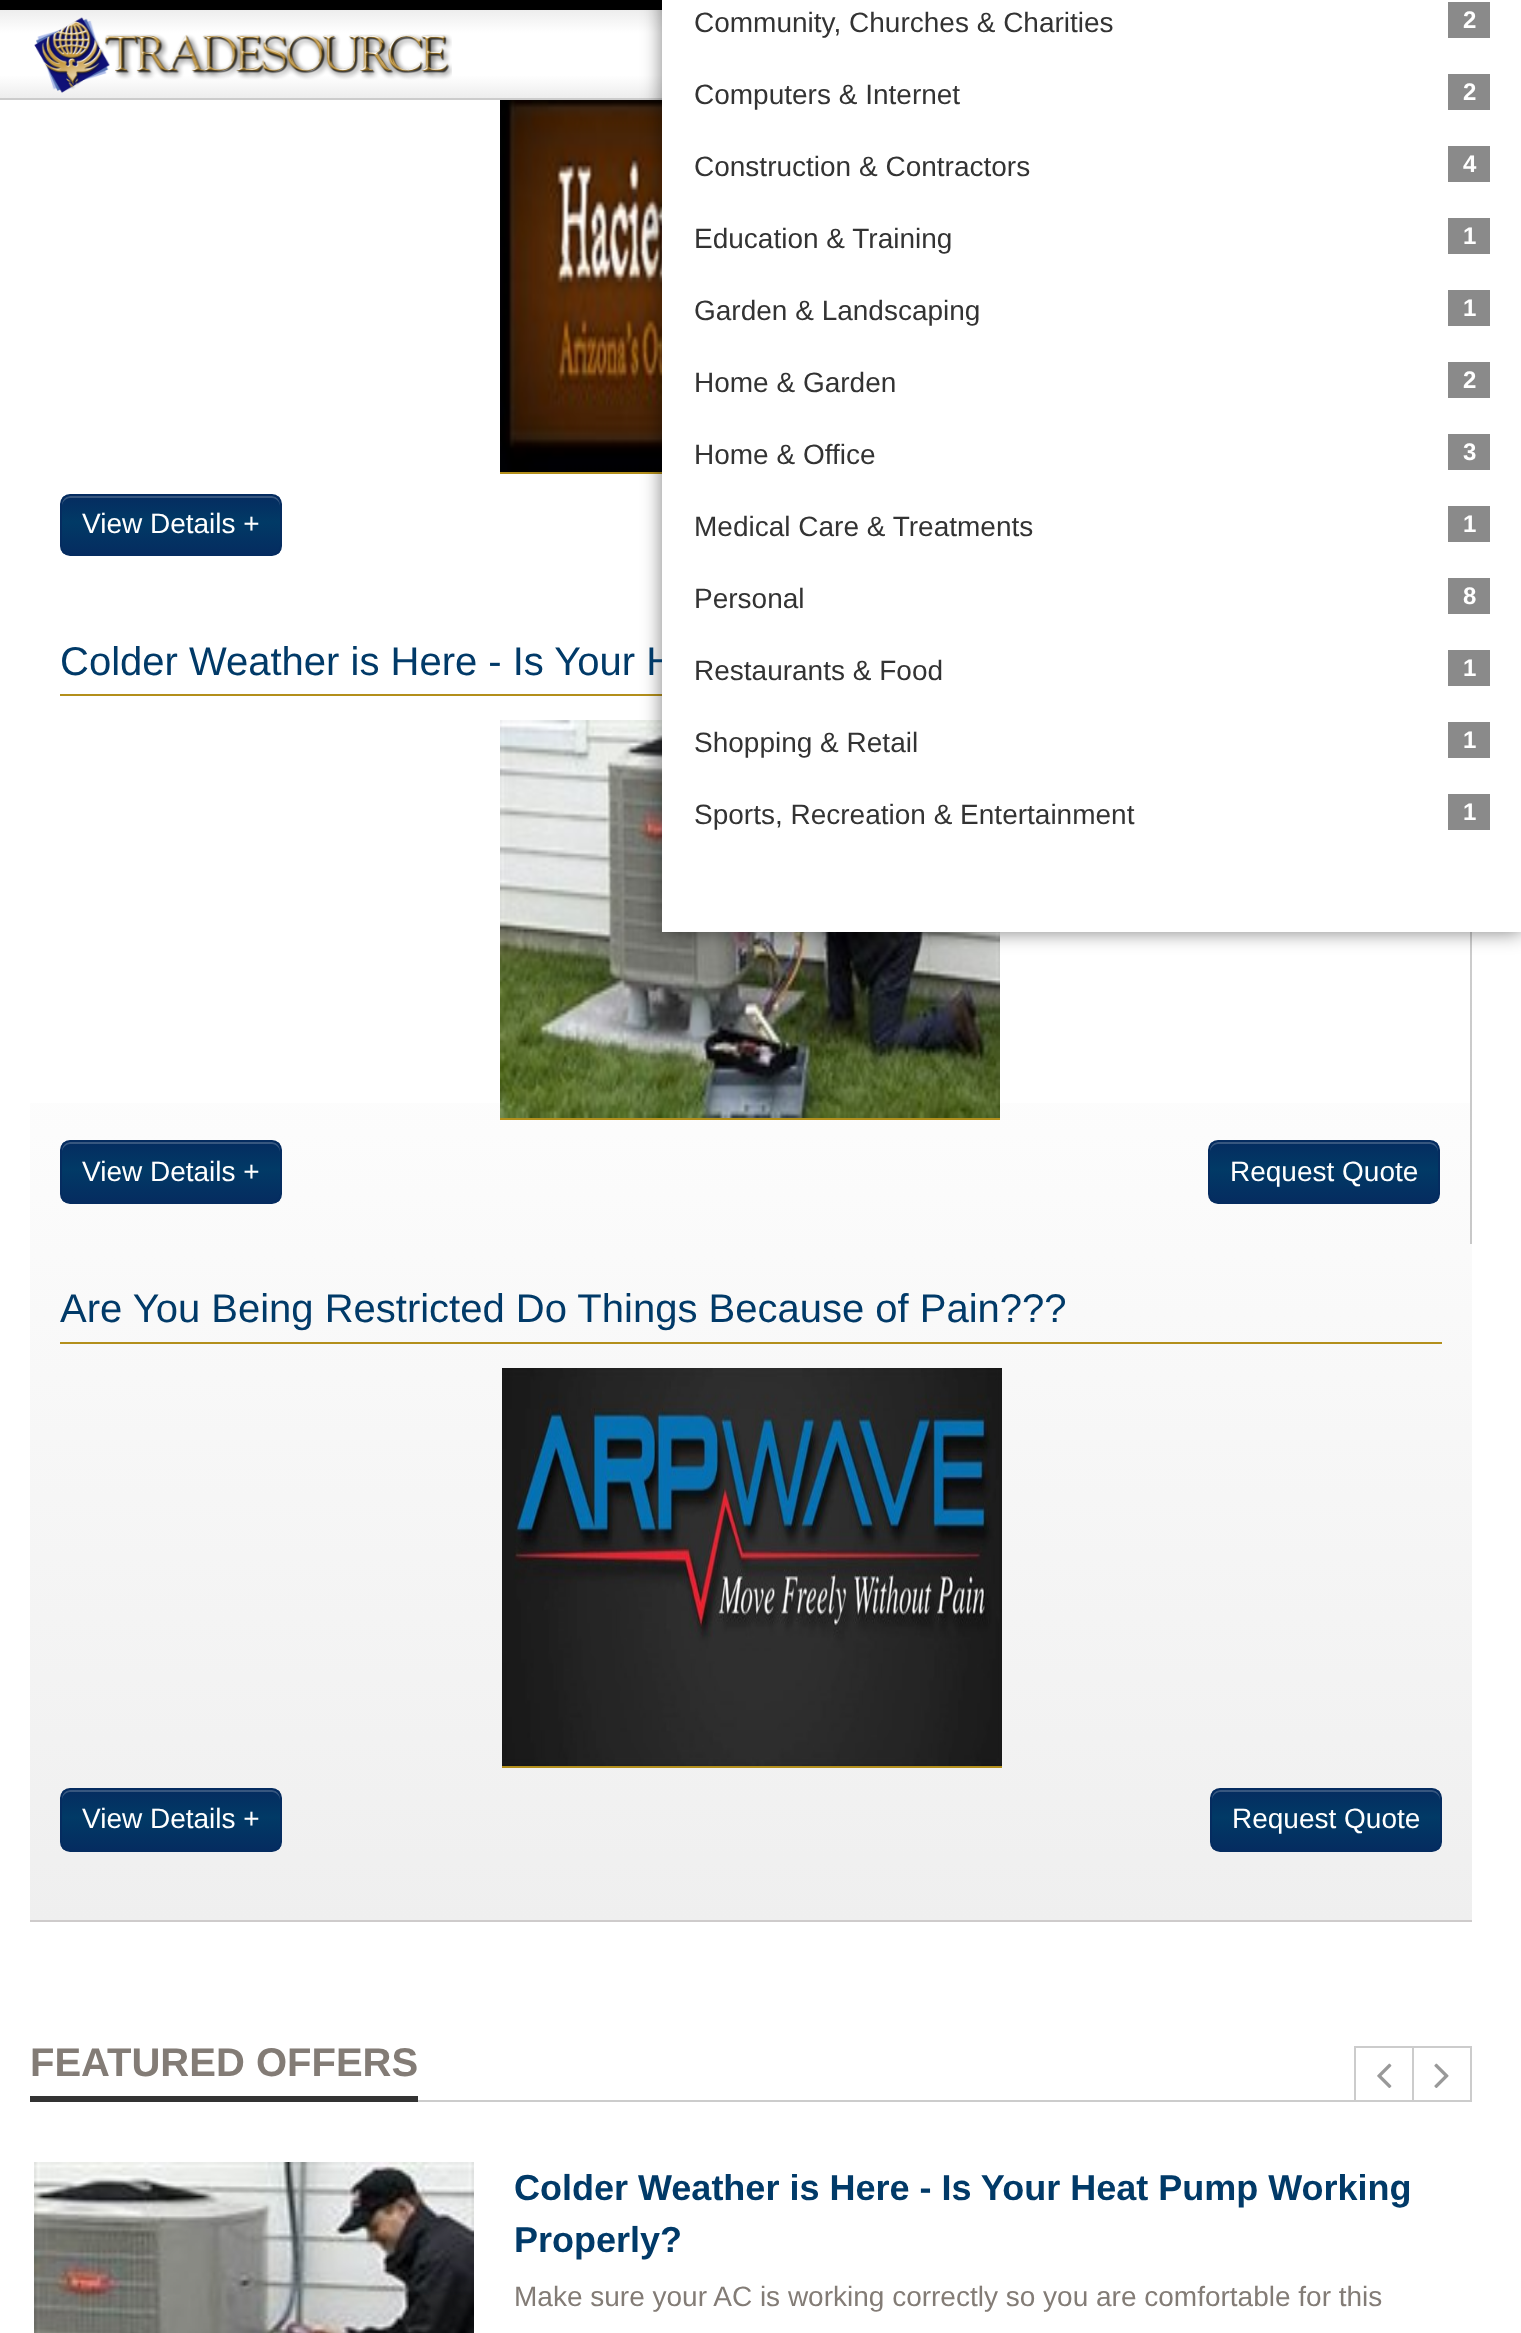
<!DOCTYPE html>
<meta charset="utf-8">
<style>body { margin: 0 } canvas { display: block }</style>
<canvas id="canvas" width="1521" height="2333"></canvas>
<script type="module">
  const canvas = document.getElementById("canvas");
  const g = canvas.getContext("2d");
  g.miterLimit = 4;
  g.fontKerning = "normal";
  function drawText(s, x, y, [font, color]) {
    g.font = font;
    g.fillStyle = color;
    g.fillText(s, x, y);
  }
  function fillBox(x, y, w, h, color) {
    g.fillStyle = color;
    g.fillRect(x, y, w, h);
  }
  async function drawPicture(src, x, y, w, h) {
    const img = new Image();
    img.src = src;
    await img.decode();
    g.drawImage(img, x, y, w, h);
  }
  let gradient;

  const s1 = ["40px Liberation Sans", "#013A68"];
  const s2 = ["28px Liberation Sans", "#333333"];
  const s3 = ["bold 24px Liberation Sans", "#FFFFFF"];
  const s4 = ["28px Liberation Sans", "#FFFFFF"];
  const s5 = ["bold 40px Liberation Sans", "#837C76"];
  const s6 = ["bold 36px Liberation Sans", "#013A68"];
  const s7 = ["28px Liberation Sans", "#837C76"];

  fillBox(0, 0, 1521, 2333, "#FFFFFF");
  gradient = g.createLinearGradient(761, 10, 761, 98);
  gradient.addColorStop(0, "#EDEDED");
  gradient.addColorStop(0.26, "#FFFFFF");
  gradient.addColorStop(0.74, "#FFFFFF");
  gradient.addColorStop(1, "#EDEDED");
  g.fillStyle = gradient;
  g.fillRect(0, 10, 662, 88);
  fillBox(0, 0, 662, 10, "#000000");
  fillBox(0, 98, 662, 2, "#CCCCCC");
  await drawPicture("pic1.png", 34, 17, 418, 76);
  gradient = g.createLinearGradient(751, -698, 751, 1920);
  gradient.addColorStop(0.63, "#FFFFFF");
  gradient.addColorStop(1, "#EFEFEF");
  g.fillStyle = gradient;
  g.fillRect(30, 1103, 1442, 817);
  gradient = g.createLinearGradient(751, -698, 751, 1920);
  gradient.addColorStop(0.63, "#CCCCCC");
  gradient.addColorStop(1, "#BFBFBF");
  g.fillStyle = gradient;
  g.fillRect(1470, 932, 2, 312);
  fillBox(500, 472, 162, 2, "#B38F1B");
  await drawPicture("pic2.png", 500, 100, 162, 372);
  fillBox(60, 694, 602, 2, "#B38F1B");
  await drawPicture("pic3.png", 500, 720, 500, 398);
  g.fillStyle = "rgba(0, 0, 0, 0.5)";
  g.filter = "blur(10px)";
  g.beginPath();
  g.rect(662, -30, 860, 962);
  g.fill();
  g.filter = "none";
  drawText("Colder Weather is Here - Is Your H", 60, 675, s1);
  fillBox(662, 0, 859, 932, "#FFFFFF");
  drawText("Community, Churches & Charities", 694, 32, s2);
  fillBox(1448, 2, 42, 36, "#8A8A8A");
  drawText("2", 1463, 28, s3);
  drawText("Computers & Internet", 694, 104, s2);
  fillBox(1448, 74, 42, 36, "#8A8A8A");
  drawText("2", 1463, 100, s3);
  drawText("Construction & Contractors", 694, 176, s2);
  fillBox(1448, 146, 42, 36, "#8A8A8A");
  drawText("4", 1463, 172, s3);
  drawText("Education & Training", 694, 248, s2);
  fillBox(1448, 218, 42, 36, "#8A8A8A");
  drawText("1", 1463, 244, s3);
  drawText("Garden & Landscaping", 694, 320, s2);
  fillBox(1448, 290, 42, 36, "#8A8A8A");
  drawText("1", 1463, 316, s3);
  drawText("Home & Garden", 694, 392, s2);
  fillBox(1448, 362, 42, 36, "#8A8A8A");
  drawText("2", 1463, 388, s3);
  drawText("Home & Office", 694, 464, s2);
  fillBox(1448, 434, 42, 36, "#8A8A8A");
  drawText("3", 1463, 460, s3);
  drawText("Medical Care & Treatments", 694, 536, s2);
  fillBox(1448, 506, 42, 36, "#8A8A8A");
  drawText("1", 1463, 532, s3);
  drawText("Personal", 694, 608, s2);
  fillBox(1448, 578, 42, 36, "#8A8A8A");
  drawText("8", 1463, 604, s3);
  drawText("Restaurants & Food", 694, 680, s2);
  fillBox(1448, 650, 42, 36, "#8A8A8A");
  drawText("1", 1463, 676, s3);
  drawText("Shopping & Retail", 694, 752, s2);
  fillBox(1448, 722, 42, 36, "#8A8A8A");
  drawText("1", 1463, 748, s3);
  drawText("Sports, Recreation & Entertainment", 694, 824, s2);
  fillBox(1448, 794, 42, 36, "#8A8A8A");
  drawText("1", 1463, 820, s3);
  fillBox(30, 1920, 1442, 2, "#CECBCB");
  g.save();
  g.beginPath();
  g.roundRect(60, 494, 222, 62, 10);
  g.clip();
  gradient = g.createLinearGradient(171, 496, 171, 554);
  gradient.addColorStop(0, "#052C60");
  gradient.addColorStop(0.45, "#013A66");
  gradient.addColorStop(1, "#052C60");
  g.fillStyle = gradient;
  g.fillRect(62, 496, 218, 58);
  g.restore();
  g.fillStyle = "rgba(255, 255, 255, 0.2)";
  g.beginPath();
  g.moveTo(70, 498);
  g.lineTo(272, 498);
  g.bezierCurveTo(276, 498, 280, 502, 280, 506);
  g.lineTo(280, 504);
  g.bezierCurveTo(280, 500, 276, 496, 272, 496);
  g.lineTo(70, 496);
  g.bezierCurveTo(66, 496, 62, 500, 62, 504);
  g.lineTo(62, 506);
  g.bezierCurveTo(62, 502, 66, 498, 70, 498);
  g.closePath();
  g.fill();
  g.beginPath();
  g.roundRect(61, 495, 220, 60, 9);
  g.strokeStyle = "#052C60";
  g.lineWidth = 2;
  g.stroke();
  drawText("View Details +", 82, 533, s4);
  fillBox(500, 1118, 500, 2, "#B38F1B");
  g.save();
  g.beginPath();
  g.roundRect(60, 1140, 222, 64, 10);
  g.clip();
  gradient = g.createLinearGradient(171, 1142, 171, 1202);
  gradient.addColorStop(0, "#052C60");
  gradient.addColorStop(0.45, "#013A66");
  gradient.addColorStop(1, "#052C60");
  g.fillStyle = gradient;
  g.fillRect(62, 1142, 218, 60);
  g.restore();
  g.fillStyle = "rgba(255, 255, 255, 0.2)";
  g.beginPath();
  g.moveTo(70, 1144);
  g.lineTo(272, 1144);
  g.bezierCurveTo(276, 1144, 280, 1148, 280, 1152);
  g.lineTo(280, 1150);
  g.bezierCurveTo(280, 1146, 276, 1142, 272, 1142);
  g.lineTo(70, 1142);
  g.bezierCurveTo(66, 1142, 62, 1146, 62, 1150);
  g.lineTo(62, 1152);
  g.bezierCurveTo(62, 1148, 66, 1144, 70, 1144);
  g.closePath();
  g.fill();
  g.beginPath();
  g.roundRect(61, 1141, 220, 62, 9);
  g.stroke();
  drawText("View Details +", 82, 1181, s4);
  g.save();
  g.beginPath();
  g.roundRect(1208, 1140, 232, 64, 10);
  g.clip();
  gradient = g.createLinearGradient(1324, 1142, 1324, 1202);
  gradient.addColorStop(0, "#052C60");
  gradient.addColorStop(0.45, "#013A66");
  gradient.addColorStop(1, "#052C60");
  g.fillStyle = gradient;
  g.fillRect(1210, 1142, 228, 60);
  g.restore();
  g.fillStyle = "rgba(255, 255, 255, 0.2)";
  g.beginPath();
  g.moveTo(1218, 1144);
  g.lineTo(1430, 1144);
  g.bezierCurveTo(1434, 1144, 1438, 1148, 1438, 1152);
  g.lineTo(1438, 1150);
  g.bezierCurveTo(1438, 1146, 1434, 1142, 1430, 1142);
  g.lineTo(1218, 1142);
  g.bezierCurveTo(1214, 1142, 1210, 1146, 1210, 1150);
  g.lineTo(1210, 1152);
  g.bezierCurveTo(1210, 1148, 1214, 1144, 1218, 1144);
  g.closePath();
  g.fill();
  g.beginPath();
  g.roundRect(1209, 1141, 230, 62, 9);
  g.stroke();
  drawText("Request Quote", 1230, 1181, s4);
  fillBox(60, 1342, 1382, 2, "#B38F1B");
  drawText("Are You Being Restricted Do Things Because of Pain???", 60, 1322, s1);
  fillBox(502, 1766, 500, 2, "#B38F1B");
  await drawPicture("pic4.png", 502, 1368, 500, 398);
  g.save();
  g.beginPath();
  g.roundRect(60, 1788, 222, 64, 10);
  g.clip();
  gradient = g.createLinearGradient(171, 1790, 171, 1850);
  gradient.addColorStop(0, "#052C60");
  gradient.addColorStop(0.45, "#013A66");
  gradient.addColorStop(1, "#052C60");
  g.fillStyle = gradient;
  g.fillRect(62, 1790, 218, 60);
  g.restore();
  g.fillStyle = "rgba(255, 255, 255, 0.2)";
  g.beginPath();
  g.moveTo(70, 1792);
  g.lineTo(272, 1792);
  g.bezierCurveTo(276, 1792, 280, 1796, 280, 1800);
  g.lineTo(280, 1798);
  g.bezierCurveTo(280, 1794, 276, 1790, 272, 1790);
  g.lineTo(70, 1790);
  g.bezierCurveTo(66, 1790, 62, 1794, 62, 1798);
  g.lineTo(62, 1800);
  g.bezierCurveTo(62, 1796, 66, 1792, 70, 1792);
  g.closePath();
  g.fill();
  g.beginPath();
  g.roundRect(61, 1789, 220, 62, 9);
  g.stroke();
  drawText("View Details +", 82, 1828, s4);
  g.save();
  g.beginPath();
  g.roundRect(1210, 1788, 232, 64, 10);
  g.clip();
  gradient = g.createLinearGradient(1326, 1790, 1326, 1850);
  gradient.addColorStop(0, "#052C60");
  gradient.addColorStop(0.45, "#013A66");
  gradient.addColorStop(1, "#052C60");
  g.fillStyle = gradient;
  g.fillRect(1212, 1790, 228, 60);
  g.restore();
  g.fillStyle = "rgba(255, 255, 255, 0.2)";
  g.beginPath();
  g.moveTo(1220, 1792);
  g.lineTo(1432, 1792);
  g.bezierCurveTo(1436, 1792, 1440, 1796, 1440, 1800);
  g.lineTo(1440, 1798);
  g.bezierCurveTo(1440, 1794, 1436, 1790, 1432, 1790);
  g.lineTo(1220, 1790);
  g.bezierCurveTo(1216, 1790, 1212, 1794, 1212, 1798);
  g.lineTo(1212, 1800);
  g.bezierCurveTo(1212, 1796, 1216, 1792, 1220, 1792);
  g.closePath();
  g.fill();
  g.beginPath();
  g.roundRect(1211, 1789, 230, 62, 9);
  g.stroke();
  drawText("Request Quote", 1232, 1828, s4);
  fillBox(418, 2100, 1054, 2, "#CCCCCC");
  fillBox(30, 2096, 388, 6, "#333333");
  drawText("FEATURED OFFERS", 30, 2076, s5);
  fillBox(1354, 2046, 118, 2, "#CCCCCC");
  fillBox(1354, 2046, 2, 54, "#CCCCCC");
  await drawPicture("pic5.png", 1377, 2063, 15, 25);
  fillBox(1470, 2046, 2, 54, "#CCCCCC");
  fillBox(1412, 2046, 2, 54, "#CCCCCC");
  await drawPicture("pic6.png", 1434, 2063, 15, 25);
  await drawPicture("pic7.png", 34, 2162, 440, 171);
  drawText("Colder Weather is Here - Is Your Heat Pump Working", 514, 2200, s6);
  drawText("Properly?", 514, 2252, s6);
  drawText("Make sure your AC is working correctly so you are comfortable for this", 514, 2306, s7);
</script>
